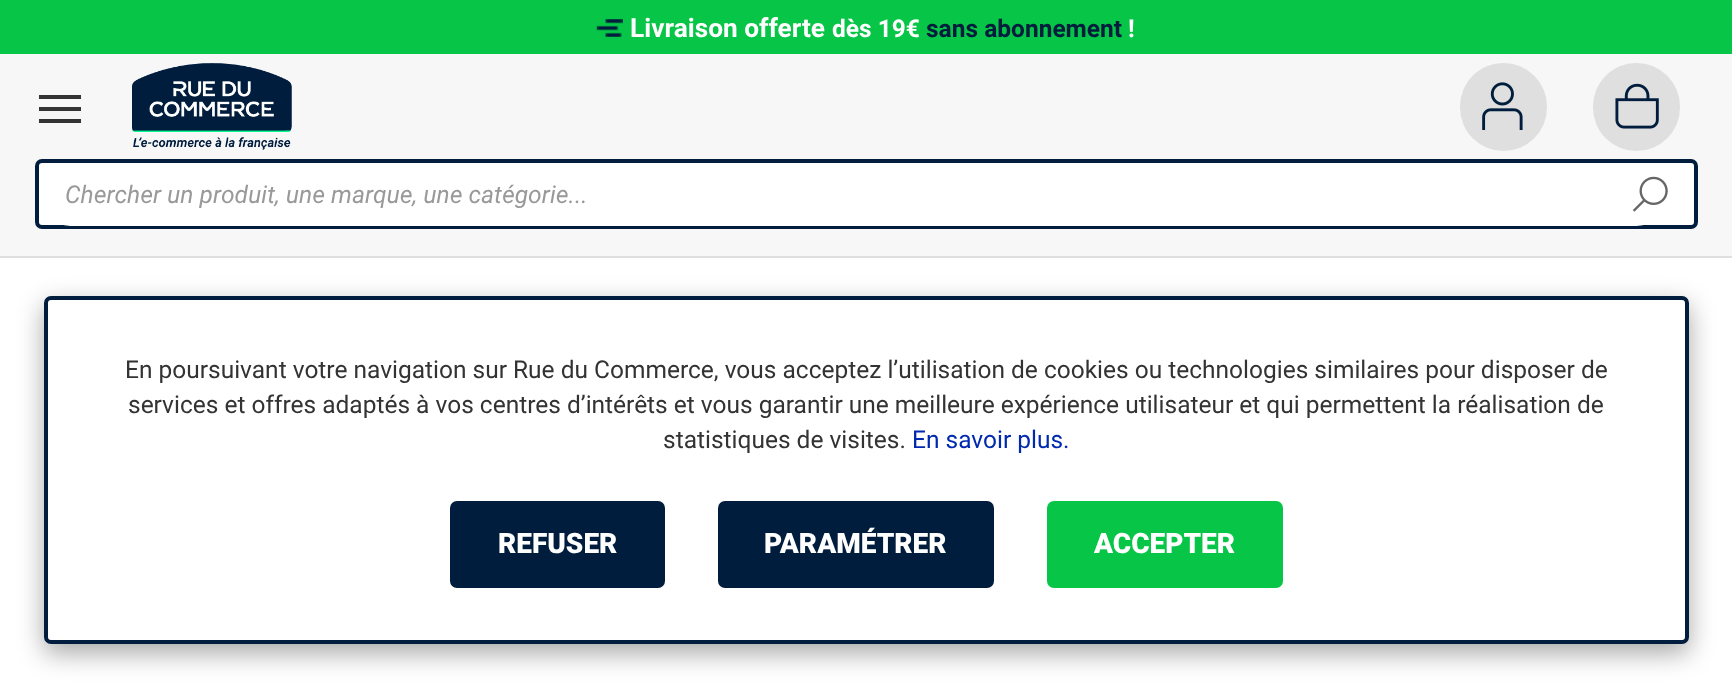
<!DOCTYPE html>
<meta charset="utf-8">
<style>body { margin: 0 } canvas { display: block }</style>
<canvas id="canvas" width="1732" height="687"></canvas>
<script type="module">
  const canvas = document.getElementById("canvas");
  const g = canvas.getContext("2d");
  g.miterLimit = 4;
  g.fontKerning = "normal";
  function drawText(s, x, y, [font, color]) {
    g.font = font;
    g.fillStyle = color;
    g.fillText(s, x, y);
  }
  function fillBox(x, y, w, h, color) {
    g.fillStyle = color;
    g.fillRect(x, y, w, h);
  }
  function fillRounded(x, y, w, h, r, color) {
    g.fillStyle = color;
    g.beginPath();
    g.roundRect(x, y, w, h, r);
    g.fill();
  }
  async function drawPicture(src, x, y, w, h) {
    const img = new Image();
    img.src = src;
    await img.decode();
    g.drawImage(img, x, y, w, h);
  }

  const s1 = ["bold 26.25px Roboto", "#FFFFFF"];
  const s2 = ["bold 24.5px Roboto", "#FFFFFF"];
  const s3 = ["bold 24.5px Roboto", "#001D3D"];
  const s4 = ["italic 24.5px Roboto", "#999999"];
  const s5 = ["24.5px Roboto", "#333333"];
  const s6 = ["24.5px Roboto", "#0029AF"];
  const s7 = ["900 28px Roboto", "#FFFFFF"];

  fillBox(0, 0, 1732, 687, "#FFFFFF");
  fillBox(0, 256, 1732, 2, "#DFDFDF");
  fillBox(0, 0, 1732, 54, "#07C546");
  await drawPicture("pic1.png", 596, 19, 27, 18);
  drawText("Livraison offerte", 630, 37, s1);
  drawText("dès 19€", 832, 37, s2);
  drawText("sans abonnement", 926, 37, s3);
  drawText("!", 1128, 37, s2);
  fillBox(0, 54, 1732, 202, "#F7F7F7");
  fillBox(39, 119, 42, 4, "#333333");
  fillBox(39, 95, 42, 4, "#333333");
  fillBox(39, 107, 42, 4, "#333333");
  await drawPicture("pic2.png", 132, 63, 160, 87);
  fillRounded(1460, 63, 87, 88, 43.5, "#DFDFDF");
  await drawPicture("pic3.png", 1482, 82, 41, 48);
  fillRounded(1593, 63, 87, 88, 43.5, "#DFDFDF");
  await drawPicture("pic4.png", 1615, 83, 44, 46);
  g.fillStyle = "#FFFFFF";
  g.beginPath();
  g.roundRect(37, 161, 1659, 66, 5);
  g.fill();
  g.strokeStyle = "#001D3D";
  g.lineWidth = 4;
  g.stroke();
  fillRounded(39, 163, 1629, 63, 31.5, "#FFFFFF");
  drawText("Chercher un produit, une marque, une catégorie...", 65, 203, s4);
  await drawPicture("pic5.png", 1632, 176, 36, 36);
  g.fillStyle = "rgba(0, 0, 0, 0.35)";
  g.filter = "blur(13px)";
  g.beginPath();
  g.roundRect(44, 305, 1645, 348, 7);
  g.fill();
  g.filter = "none";
  g.fillStyle = "#FFFFFF";
  g.beginPath();
  g.roundRect(46, 298, 1641, 344, 5);
  g.fill();
  g.stroke();
  drawText("En poursuivant votre navigation sur Rue du Commerce, vous acceptez l’utilisation de cookies ou technologies similaires pour disposer de", 125, 378, s5);
  drawText("services et offres adaptés à vos centres d’intérêts et vous garantir une meilleure expérience utilisateur et qui permettent la réalisation de", 128, 413, s5);
  drawText("statistiques de visites.", 663, 448, s5);
  drawText("En savoir plus.", 912, 448, s6);
  fillRounded(450, 501, 215, 87, 7, "#001D3D");
  drawText("REFUSER", 498, 553, s7);
  fillRounded(718, 501, 276, 87, 7, "#001D3D");
  drawText("PARAMÉTRER", 764, 553, s7);
  fillRounded(1047, 501, 236, 87, 7, "#07C546");
  drawText("ACCEPTER", 1094, 553, s7);
</script>
